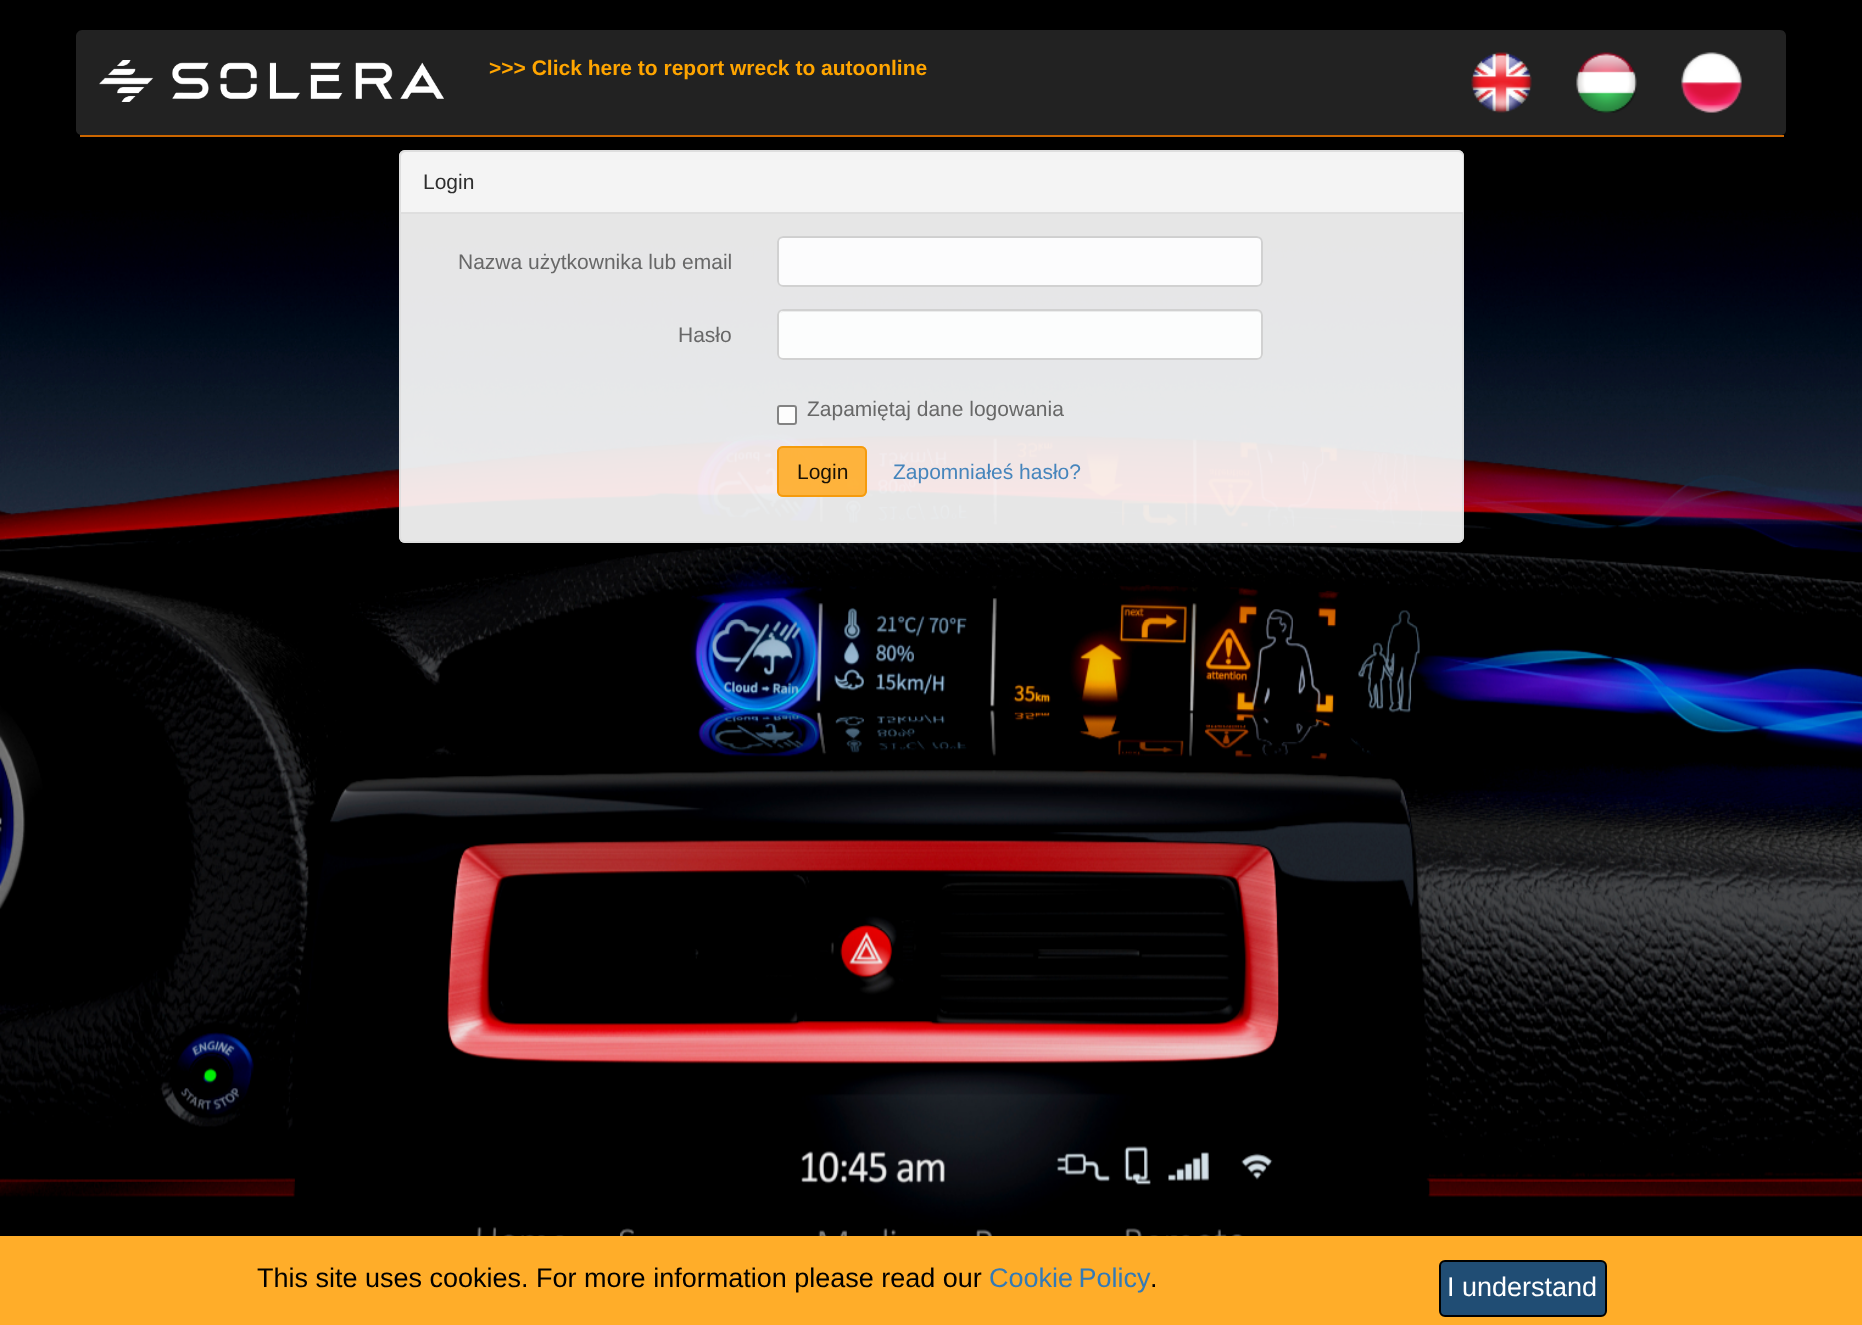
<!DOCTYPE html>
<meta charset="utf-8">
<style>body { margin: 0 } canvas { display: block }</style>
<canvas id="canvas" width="1862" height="1325"></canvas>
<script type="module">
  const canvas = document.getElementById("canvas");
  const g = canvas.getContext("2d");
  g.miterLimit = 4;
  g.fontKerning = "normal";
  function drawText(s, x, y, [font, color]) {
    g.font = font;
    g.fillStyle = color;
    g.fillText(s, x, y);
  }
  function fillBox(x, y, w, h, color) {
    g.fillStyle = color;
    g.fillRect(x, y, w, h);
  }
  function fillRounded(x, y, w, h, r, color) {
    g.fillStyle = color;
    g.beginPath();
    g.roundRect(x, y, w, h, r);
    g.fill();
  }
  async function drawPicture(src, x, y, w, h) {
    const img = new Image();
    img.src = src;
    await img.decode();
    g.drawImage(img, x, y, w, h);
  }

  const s1 = ["bold 21px Liberation Sans", "#FFA500"];
  const s2 = ["21px Liberation Sans", "#2E2E2E"];
  const s3 = ["21px Liberation Sans", "#686868"];
  const s4 = ["21px Liberation Sans", "#191206"];
  const s5 = ["21px Liberation Sans", "#4685BC"];
  const s6 = ["27px Liberation Sans", "#000000"];
  const s7 = ["27px Liberation Sans", "#337AB7"];
  const s8 = ["27px Liberation Sans", "#FFFFFF"];

  fillBox(0, 0, 1862, 1325, "#000000");
  g.fillStyle = "#222222";
  g.beginPath();
  g.moveTo(82, 30);
  g.lineTo(1780, 30);
  g.bezierCurveTo(1784, 30, 1786, 33, 1786, 36);
  g.lineTo(1786, 130);
  g.bezierCurveTo(1786, 133, 1784, 135, 1780, 135);
  g.lineTo(82, 135);
  g.bezierCurveTo(79, 135, 76, 133, 76, 130);
  g.lineTo(76, 36);
  g.bezierCurveTo(76, 33, 79, 30, 82, 30);
  g.closePath();
  g.fill();
  fillBox(80, 135, 1704, 2, "#CC6600");
  await drawPicture("pic1.png", 99, 60, 345, 42);
  drawText(">>> Click here to report wreck to autoonline", 489, 75, s1);
  await drawPicture("pic2.png", 1471, 52, 61, 61);
  await drawPicture("pic3.png", 1576, 52, 61, 61);
  await drawPicture("pic4.png", 1681, 52, 61, 61);
  await drawPicture("pic5.png", 0, 210, 1862, 1026);
  fillRounded(399, 150, 1065, 393, 6, "rgba(255, 255, 255, 0.9)");
  g.beginPath();
  g.roundRect(400, 151, 1063, 391, 5);
  g.strokeStyle = "rgba(221, 221, 221, 0.9)";
  g.lineWidth = 2;
  g.stroke();
  g.fillStyle = "rgba(245, 245, 245, 0.9)";
  g.beginPath();
  g.roundRect(401, 152, 1062, 61, [5, 5, 0, 0]);
  g.fill();
  fillBox(401, 212, 1062, 2, "rgba(221, 221, 221, 0.9)");
  drawText("Login", 423, 189, s2);
  drawText("Nazwa użytkownika lub email", 458, 269, s3);
  fillRounded(777, 236, 486, 51, 6, "#FCFCFD");
  g.fillStyle = "#EBEBEC";
  g.beginPath();
  g.moveTo(783, 238);
  g.lineTo(1257, 238);
  g.bezierCurveTo(1259, 238, 1262, 241, 1262, 243);
  g.lineTo(1262, 242);
  g.bezierCurveTo(1262, 239, 1260, 237, 1257, 237);
  g.lineTo(784, 237);
  g.bezierCurveTo(782, 237, 780, 238, 779, 240);
  g.bezierCurveTo(780, 239, 782, 238, 783, 238);
  g.closePath();
  g.fill();
  g.beginPath();
  g.roundRect(778, 237, 484, 49, 5);
  g.strokeStyle = "rgba(204, 204, 204, 0.9)";
  g.stroke();
  drawText("Hasło", 678, 342, s3);
  fillRounded(777, 309, 486, 51, 6, "#FCFDFD");
  g.fillStyle = "#EBECEC";
  g.beginPath();
  g.moveTo(783, 312);
  g.lineTo(1257, 312);
  g.bezierCurveTo(1259, 312, 1262, 314, 1262, 316);
  g.bezierCurveTo(1262, 313, 1260, 311, 1257, 311);
  g.lineTo(784, 311);
  g.bezierCurveTo(782, 311, 781, 312, 780, 313);
  g.closePath();
  g.fill();
  g.beginPath();
  g.roundRect(778, 310, 484, 49, 5);
  g.stroke();
  fillRounded(777, 405, 20, 20, 3, "#FDFDFD");
  g.beginPath();
  g.roundRect(778, 406, 18, 18, 2);
  g.strokeStyle = "rgba(118, 118, 118, 0.9)";
  g.stroke();
  drawText("Zapamiętaj dane logowania", 807, 416, s3);
  fillRounded(777, 446, 90, 51, 6, "rgba(255, 173, 41, 0.9)");
  g.beginPath();
  g.roundRect(778, 447, 88, 49, 5);
  g.strokeStyle = "rgba(244, 152, 8, 0.9)";
  g.stroke();
  drawText("Login", 797, 479, s4);
  drawText("Zapomniałeś hasło?", 893, 479, s5);
  fillBox(0, 1236, 1862, 89, "#FFAD29");
  drawText("This site uses cookies. For more information please read our", 257, 1287, s6);
  g.wordSpacing = "-2px";
  drawText("Cookie Policy", 989, 1287, s7);
  g.wordSpacing = "0px";
  drawText(".", 1150, 1287, s6);
  g.fillStyle = "#204D74";
  g.beginPath();
  g.roundRect(1440, 1261, 166, 55, 5);
  g.fill();
  g.strokeStyle = "#000000";
  g.stroke();
  drawText("I understand", 1447, 1296, s8);
</script>
